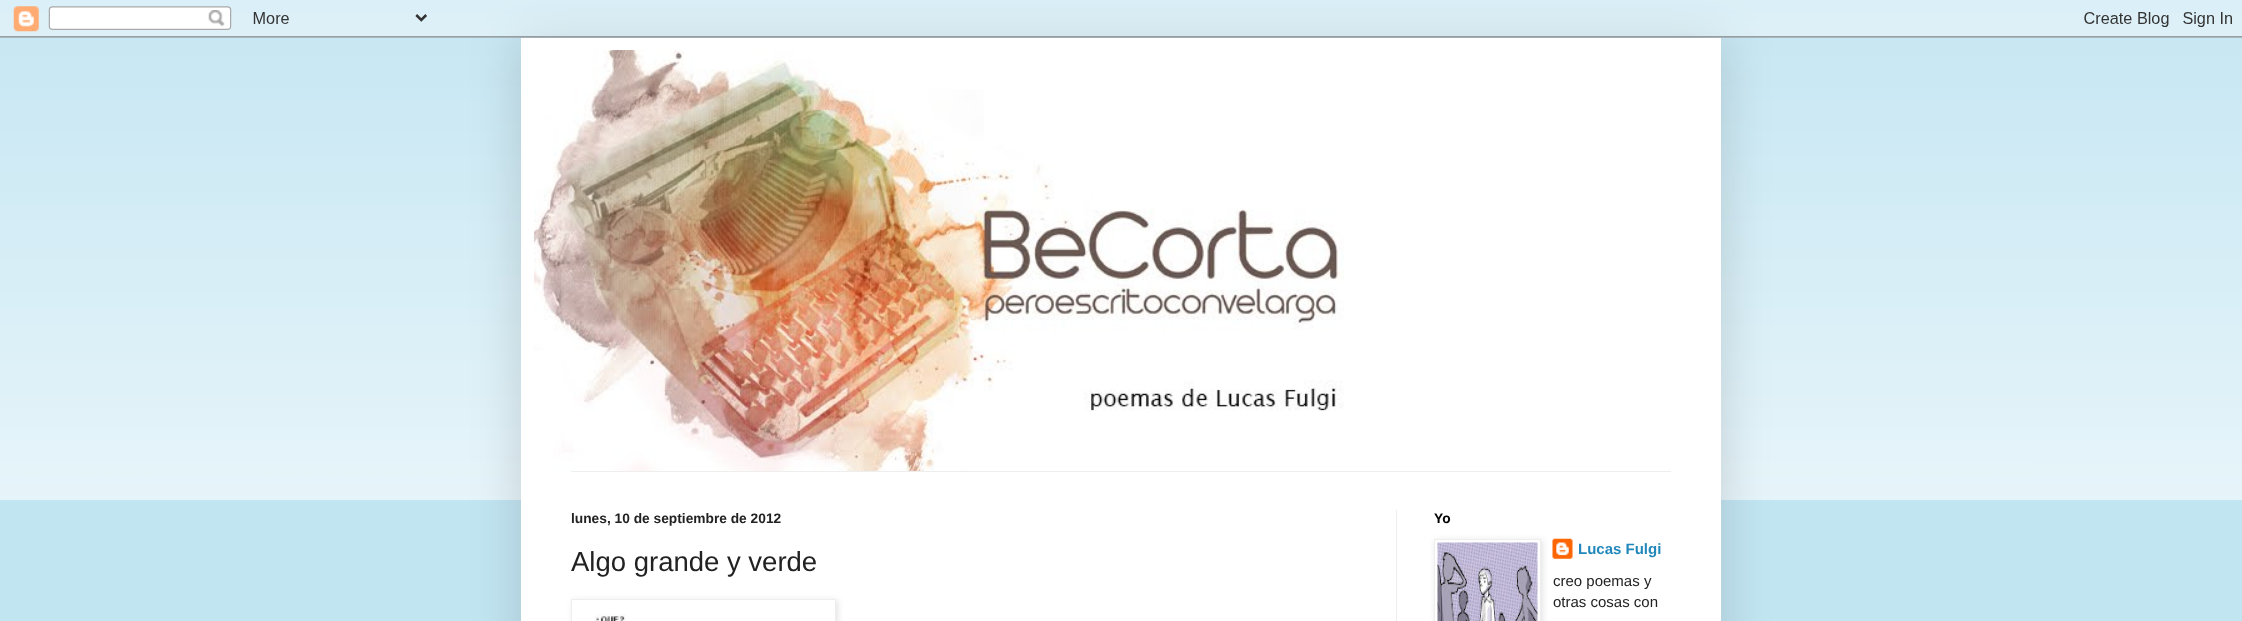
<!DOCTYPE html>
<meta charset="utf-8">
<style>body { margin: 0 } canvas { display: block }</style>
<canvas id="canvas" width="2242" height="621"></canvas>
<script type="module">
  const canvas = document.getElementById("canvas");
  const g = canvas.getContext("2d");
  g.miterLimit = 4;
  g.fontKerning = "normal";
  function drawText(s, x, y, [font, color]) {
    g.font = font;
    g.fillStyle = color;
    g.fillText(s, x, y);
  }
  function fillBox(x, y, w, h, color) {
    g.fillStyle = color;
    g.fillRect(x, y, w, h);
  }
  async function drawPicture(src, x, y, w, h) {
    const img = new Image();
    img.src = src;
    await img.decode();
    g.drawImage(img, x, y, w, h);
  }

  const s1 = ["bold 13.75px Liberation Sans", "#222222"];
  const s2 = ["27.5px Liberation Sans", "#222222"];
  const s3 = ["bold 13.75px Liberation Sans", "#000000"];
  const s4 = ["bold 15px Liberation Sans", "#2288BB"];
  const s5 = ["15px Liberation Sans", "#222222"];

  fillBox(0, 0, 2242, 621, "#C2E5F2");
  await drawPicture("pic2.png", 0, 13, 2242, 487);
  g.fillStyle = "rgba(0, 0, 0, 0.15)";
  g.filter = "blur(25px)";
  g.beginPath();
  g.rect(521, 38, 1200, 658);
  g.fill();
  g.filter = "none";
  await drawPicture("pic1.png", 0, 0, 2242, 38);
  fillBox(521, 38, 1200, 583, "#FFFFFF");
  await drawPicture("pic3.png", 533, 50, 811, 422);
  fillBox(571, 471, 1100, 1, "#EEEEEE");
  fillBox(1396, 510, 1, 111, "#EEEEEE");
  drawText("lunes, 10 de septiembre de 2012", 571, 523, s1);
  drawText("Algo grande y verde", 571, 571, s2);
  g.fillStyle = "rgba(0, 0, 0, 0.1)";
  g.filter = "blur(3px)";
  g.beginPath();
  g.rect(573, 600, 265, 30);
  g.fill();
  g.filter = "none";
  g.fillStyle = "#FFFFFF";
  g.beginPath();
  g.rect(571.5, 599.5, 264, 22);
  g.fill();
  g.strokeStyle = "#EEEEEE";
  g.stroke();
  await drawPicture("pic4.png", 595, 614, 31, 7);
  drawText("Yo", 1434, 523, s3);
  await drawPicture("pic6.png", 1552, 538, 21, 21);
  g.save();
  g.beginPath();
  g.moveTo(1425, 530);
  g.lineTo(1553, 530);
  g.lineTo(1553, 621);
  g.lineTo(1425, 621);
  g.closePath();
  g.moveTo(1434, 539);
  g.lineTo(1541, 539);
  g.lineTo(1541, 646);
  g.lineTo(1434, 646);
  g.closePath();
  g.clip("evenodd");
  g.fillStyle = "rgba(0, 0, 0, 0.1)";
  g.filter = "blur(3px)";
  g.beginPath();
  g.rect(1435, 540, 108, 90);
  g.fill();
  g.filter = "none";
  g.restore();
  g.strokeRect(1434.5, 539.5, 106, 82);
  await drawPicture("pic5.png", 1437, 542, 101, 79);
  drawText("Lucas Fulgi", 1578, 554, s4);
  drawText("creo poemas y", 1553, 586, s5);
  drawText("otras cosas con", 1553, 607, s5);
</script>
